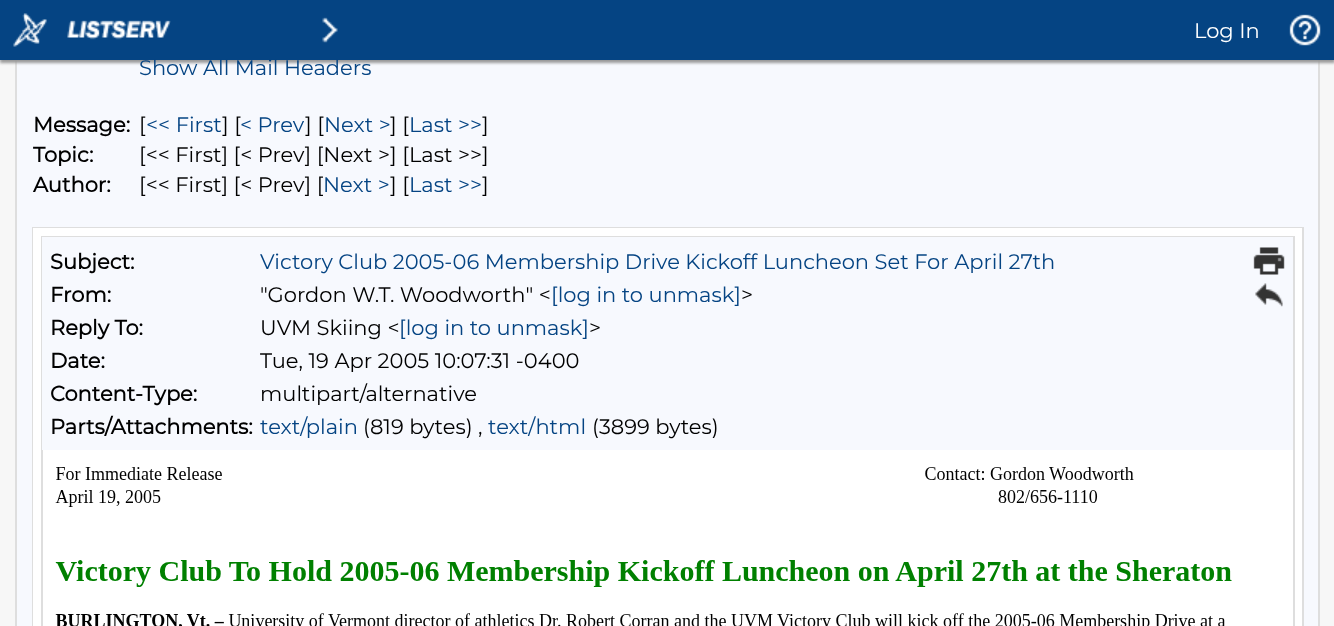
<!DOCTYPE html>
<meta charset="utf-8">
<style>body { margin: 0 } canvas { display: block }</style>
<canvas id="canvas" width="1334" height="626"></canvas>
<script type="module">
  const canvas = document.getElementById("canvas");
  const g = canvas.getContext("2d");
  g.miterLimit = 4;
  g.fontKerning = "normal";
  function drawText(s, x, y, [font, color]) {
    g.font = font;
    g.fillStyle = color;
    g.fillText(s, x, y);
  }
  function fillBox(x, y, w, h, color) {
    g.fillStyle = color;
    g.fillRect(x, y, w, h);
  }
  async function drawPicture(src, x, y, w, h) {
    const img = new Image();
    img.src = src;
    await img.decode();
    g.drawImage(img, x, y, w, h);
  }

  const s1 = ["100 21px Montserrat", "#FFFFFF"];
  const s2 = ["100 21px Montserrat", "#054483"];
  const s3 = ["bold 21px Montserrat", "#000000"];
  const s4 = ["100 21px Montserrat", "#000000"];

  fillBox(0, 0, 1334, 626, "#F7F7F7");
  fillBox(17, 60, 1301, 566, "#F7F9FE");
  g.strokeStyle = "#DEDEDE";
  g.lineWidth = 2;
  g.strokeRect(16, -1, 1303, 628);
  g.fillStyle = "#999999";
  g.filter = "blur(1.5px)";
  g.beginPath();
  g.rect(0, 3, 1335, 60);
  g.fill();
  g.filter = "none";
  fillBox(0, 0, 1334, 60, "#054483");
  await drawPicture("pic1.png", 13, 13, 34, 34);
  await drawPicture("pic2.png", 67, 20, 104, 20);
  await drawPicture("pic3.png", 322, 17, 16, 26);
  drawText("Log In", 1194, 38, s1);
  await drawPicture("pic4.png", 1289, 14, 32, 32);
  drawText("Show All Mail Headers", 139, 75, s2);
  drawText("Message:", 33, 132, s3);
  drawText("[", 139, 132, s4);
  drawText("<< First", 146, 132, s2);
  drawText("] [", 222, 132, s4);
  drawText("< Prev", 240, 132, s2);
  drawText("] [", 305, 132, s4);
  drawText("Next >", 324, 132, s2);
  drawText("] [", 390, 132, s4);
  drawText("Last >>", 409, 132, s2);
  drawText("]", 482, 132, s4);
  drawText("Topic:", 33, 162, s3);
  drawText("[<< First] [< Prev] [Next >] [Last >>]", 139, 162, s4);
  drawText("Author:", 33, 192, s3);
  drawText("[<< First] [< Prev] [", 139, 192, s4);
  drawText("Next >", 323, 192, s2);
  drawText("] [", 390, 192, s4);
  drawText("Last >>", 409, 192, s2);
  drawText("]", 482, 192, s4);
  g.strokeRect(33, 228, 1270, 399);
  fillBox(33, 228, 1269, 398, "#FFFFFF");
  g.strokeRect(42, 237, 1252, 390);
  fillBox(42, 237, 1251, 213, "#F7F9FE");
  drawText("Subject:", 50, 269, s3);
  drawText("Victory Club 2005-06 Membership Drive Kickoff Luncheon Set For April 27th", 260, 269, s2);
  drawText("From:", 50, 302, s3);
  drawText("\"Gordon W.T. Woodworth\" <", 260, 302, s4);
  drawText("[log in to unmask]", 551, 302, s2);
  drawText(">", 741, 302, s4);
  drawText("Reply To:", 50, 335, s3);
  drawText("UVM Skiing <", 260, 335, s4);
  drawText("[log in to unmask]", 399, 335, s2);
  drawText(">", 589, 335, s4);
  drawText("Date:", 50, 368, s3);
  drawText("Tue, 19 Apr 2005 10:07:31 -0400", 260, 368, s4);
  drawText("Content-Type:", 50, 401, s3);
  drawText("multipart/alternative", 260, 401, s4);
  drawText("Parts/Attachments:", 50, 434, s3);
  drawText("text/plain", 260, 434, s2);
  drawText("(819 bytes) ,", 363, 434, s4);
  drawText("text/html", 488, 434, s2);
  drawText("(3899 bytes)", 592, 434, s4);
  await drawPicture("pic5.png", 1253, 247, 32, 28);
  await drawPicture("pic6.png", 1255, 283, 28, 24);
  await drawPicture("pic7.png", 55, 467, 1177, 159);
</script>
